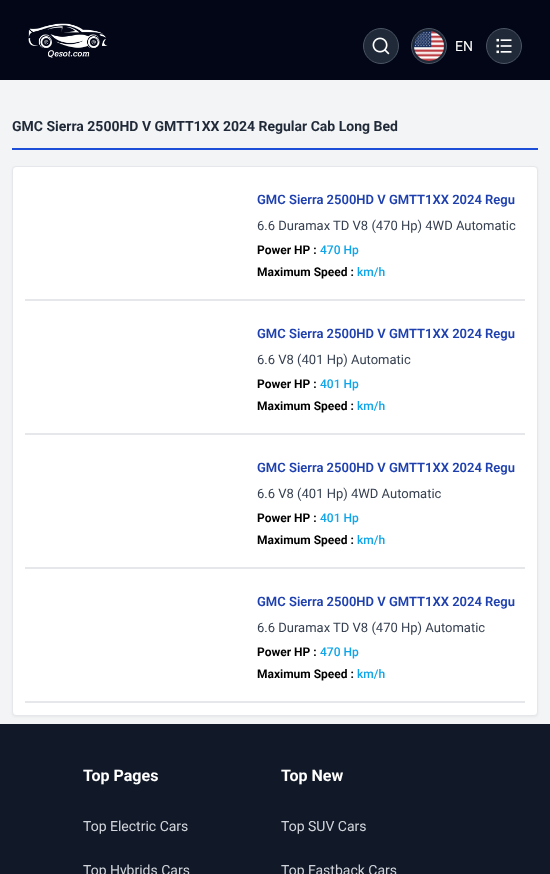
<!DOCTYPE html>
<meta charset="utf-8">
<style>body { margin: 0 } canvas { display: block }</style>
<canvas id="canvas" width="550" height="874"></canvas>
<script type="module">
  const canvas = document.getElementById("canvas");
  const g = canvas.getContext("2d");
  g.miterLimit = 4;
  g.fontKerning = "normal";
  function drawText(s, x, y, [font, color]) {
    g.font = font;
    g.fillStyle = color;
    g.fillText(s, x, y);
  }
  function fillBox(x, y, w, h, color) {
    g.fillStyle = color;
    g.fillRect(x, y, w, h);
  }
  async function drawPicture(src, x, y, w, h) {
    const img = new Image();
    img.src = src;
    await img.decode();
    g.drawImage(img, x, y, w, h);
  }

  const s1 = ["14px Roboto", "#FFFFFF"];
  const s2 = ["bold 14px Roboto", "#1F2937"];
  const s3 = ["600 13px Roboto", "#1E40AF"];
  const s4 = ["13px Roboto", "#374151"];
  const s5 = ["bold 12px Roboto", "#000000"];
  const s6 = ["500 12px Roboto", "#0EA5E9"];
  const s7 = ["bold 16px Roboto", "#FFFFFF"];
  const s8 = ["14px Roboto", "#D1D5DB"];

  fillBox(0, 0, 550, 874, "#F3F4F6");
  fillBox(0, 0, 550, 80, "#020617");
  await drawPicture("pic1.png", 28, 23, 80, 35);
  g.fillStyle = "#1F2937";
  g.beginPath();
  g.arc(381, 46, 17.5, 0, Math.PI * 2);
  g.fill();
  g.strokeStyle = "#4B5563";
  g.stroke();
  await drawPicture("pic2.png", 372, 37, 18, 18);
  g.beginPath();
  g.arc(429, 46, 17.5, 0, Math.PI * 2);
  g.fill();
  g.stroke();
  await drawPicture("pic3.png", 414, 31, 30, 30);
  drawText("EN", 455, 51, s1);
  g.fillStyle = "#1F2937";
  g.beginPath();
  g.arc(504, 46, 17.5, 0, Math.PI * 2);
  g.fill();
  g.stroke();
  await drawPicture("pic4.png", 496, 38, 16, 16);
  fillBox(12, 148, 526, 2, "#1D4ED8");
  drawText("GMC Sierra 2500HD V GMTT1XX 2024 Regular Cab Long Bed", 12, 131, s2);
  g.fillStyle = "rgba(0, 0, 0, 0.05)";
  g.filter = "blur(1px)";
  g.beginPath();
  g.roundRect(12, 167, 526, 550, 4);
  g.fill();
  g.filter = "none";
  g.fillStyle = "#FFFFFF";
  g.beginPath();
  g.roundRect(12.5, 166.5, 525, 549, 3.5);
  g.fill();
  g.strokeStyle = "#E5E7EB";
  g.stroke();
  fillBox(25, 299, 500, 2, "#E5E7EB");
  drawText("GMC Sierra 2500HD V GMTT1XX 2024 Regu", 257, 204, s3);
  drawText("6.6 Duramax TD V8 (470 Hp) 4WD Automatic", 257, 230, s4);
  drawText("Power HP :", 257, 254, s5);
  drawText("470 Hp", 320, 254, s6);
  drawText("Maximum Speed :", 257, 276, s5);
  drawText("km/h", 357, 276, s6);
  fillBox(25, 433, 500, 2, "#E5E7EB");
  drawText("GMC Sierra 2500HD V GMTT1XX 2024 Regu", 257, 338, s3);
  drawText("6.6 V8 (401 Hp) Automatic", 257, 364, s4);
  drawText("Power HP :", 257, 388, s5);
  drawText("401 Hp", 320, 388, s6);
  drawText("Maximum Speed :", 257, 410, s5);
  drawText("km/h", 357, 410, s6);
  fillBox(25, 567, 500, 2, "#E5E7EB");
  drawText("GMC Sierra 2500HD V GMTT1XX 2024 Regu", 257, 472, s3);
  drawText("6.6 V8 (401 Hp) 4WD Automatic", 257, 498, s4);
  drawText("Power HP :", 257, 522, s5);
  drawText("401 Hp", 320, 522, s6);
  drawText("Maximum Speed :", 257, 544, s5);
  drawText("km/h", 357, 544, s6);
  fillBox(25, 701, 500, 2, "#E5E7EB");
  drawText("GMC Sierra 2500HD V GMTT1XX 2024 Regu", 257, 606, s3);
  drawText("6.6 Duramax TD V8 (470 Hp) Automatic", 257, 632, s4);
  drawText("Power HP :", 257, 656, s5);
  drawText("470 Hp", 320, 656, s6);
  drawText("Maximum Speed :", 257, 678, s5);
  drawText("km/h", 357, 678, s6);
  fillBox(0, 724, 550, 150, "#111827");
  drawText("Top Pages", 83, 781, s7);
  drawText("Top Electric Cars", 83, 831, s8);
  drawText("Top Hybrids Cars", 83, 875, s8);
  drawText("Top New", 281, 781, s7);
  drawText("Top SUV Cars", 281, 831, s8);
  drawText("Top Fastback Cars", 281, 875, s8);
</script>
